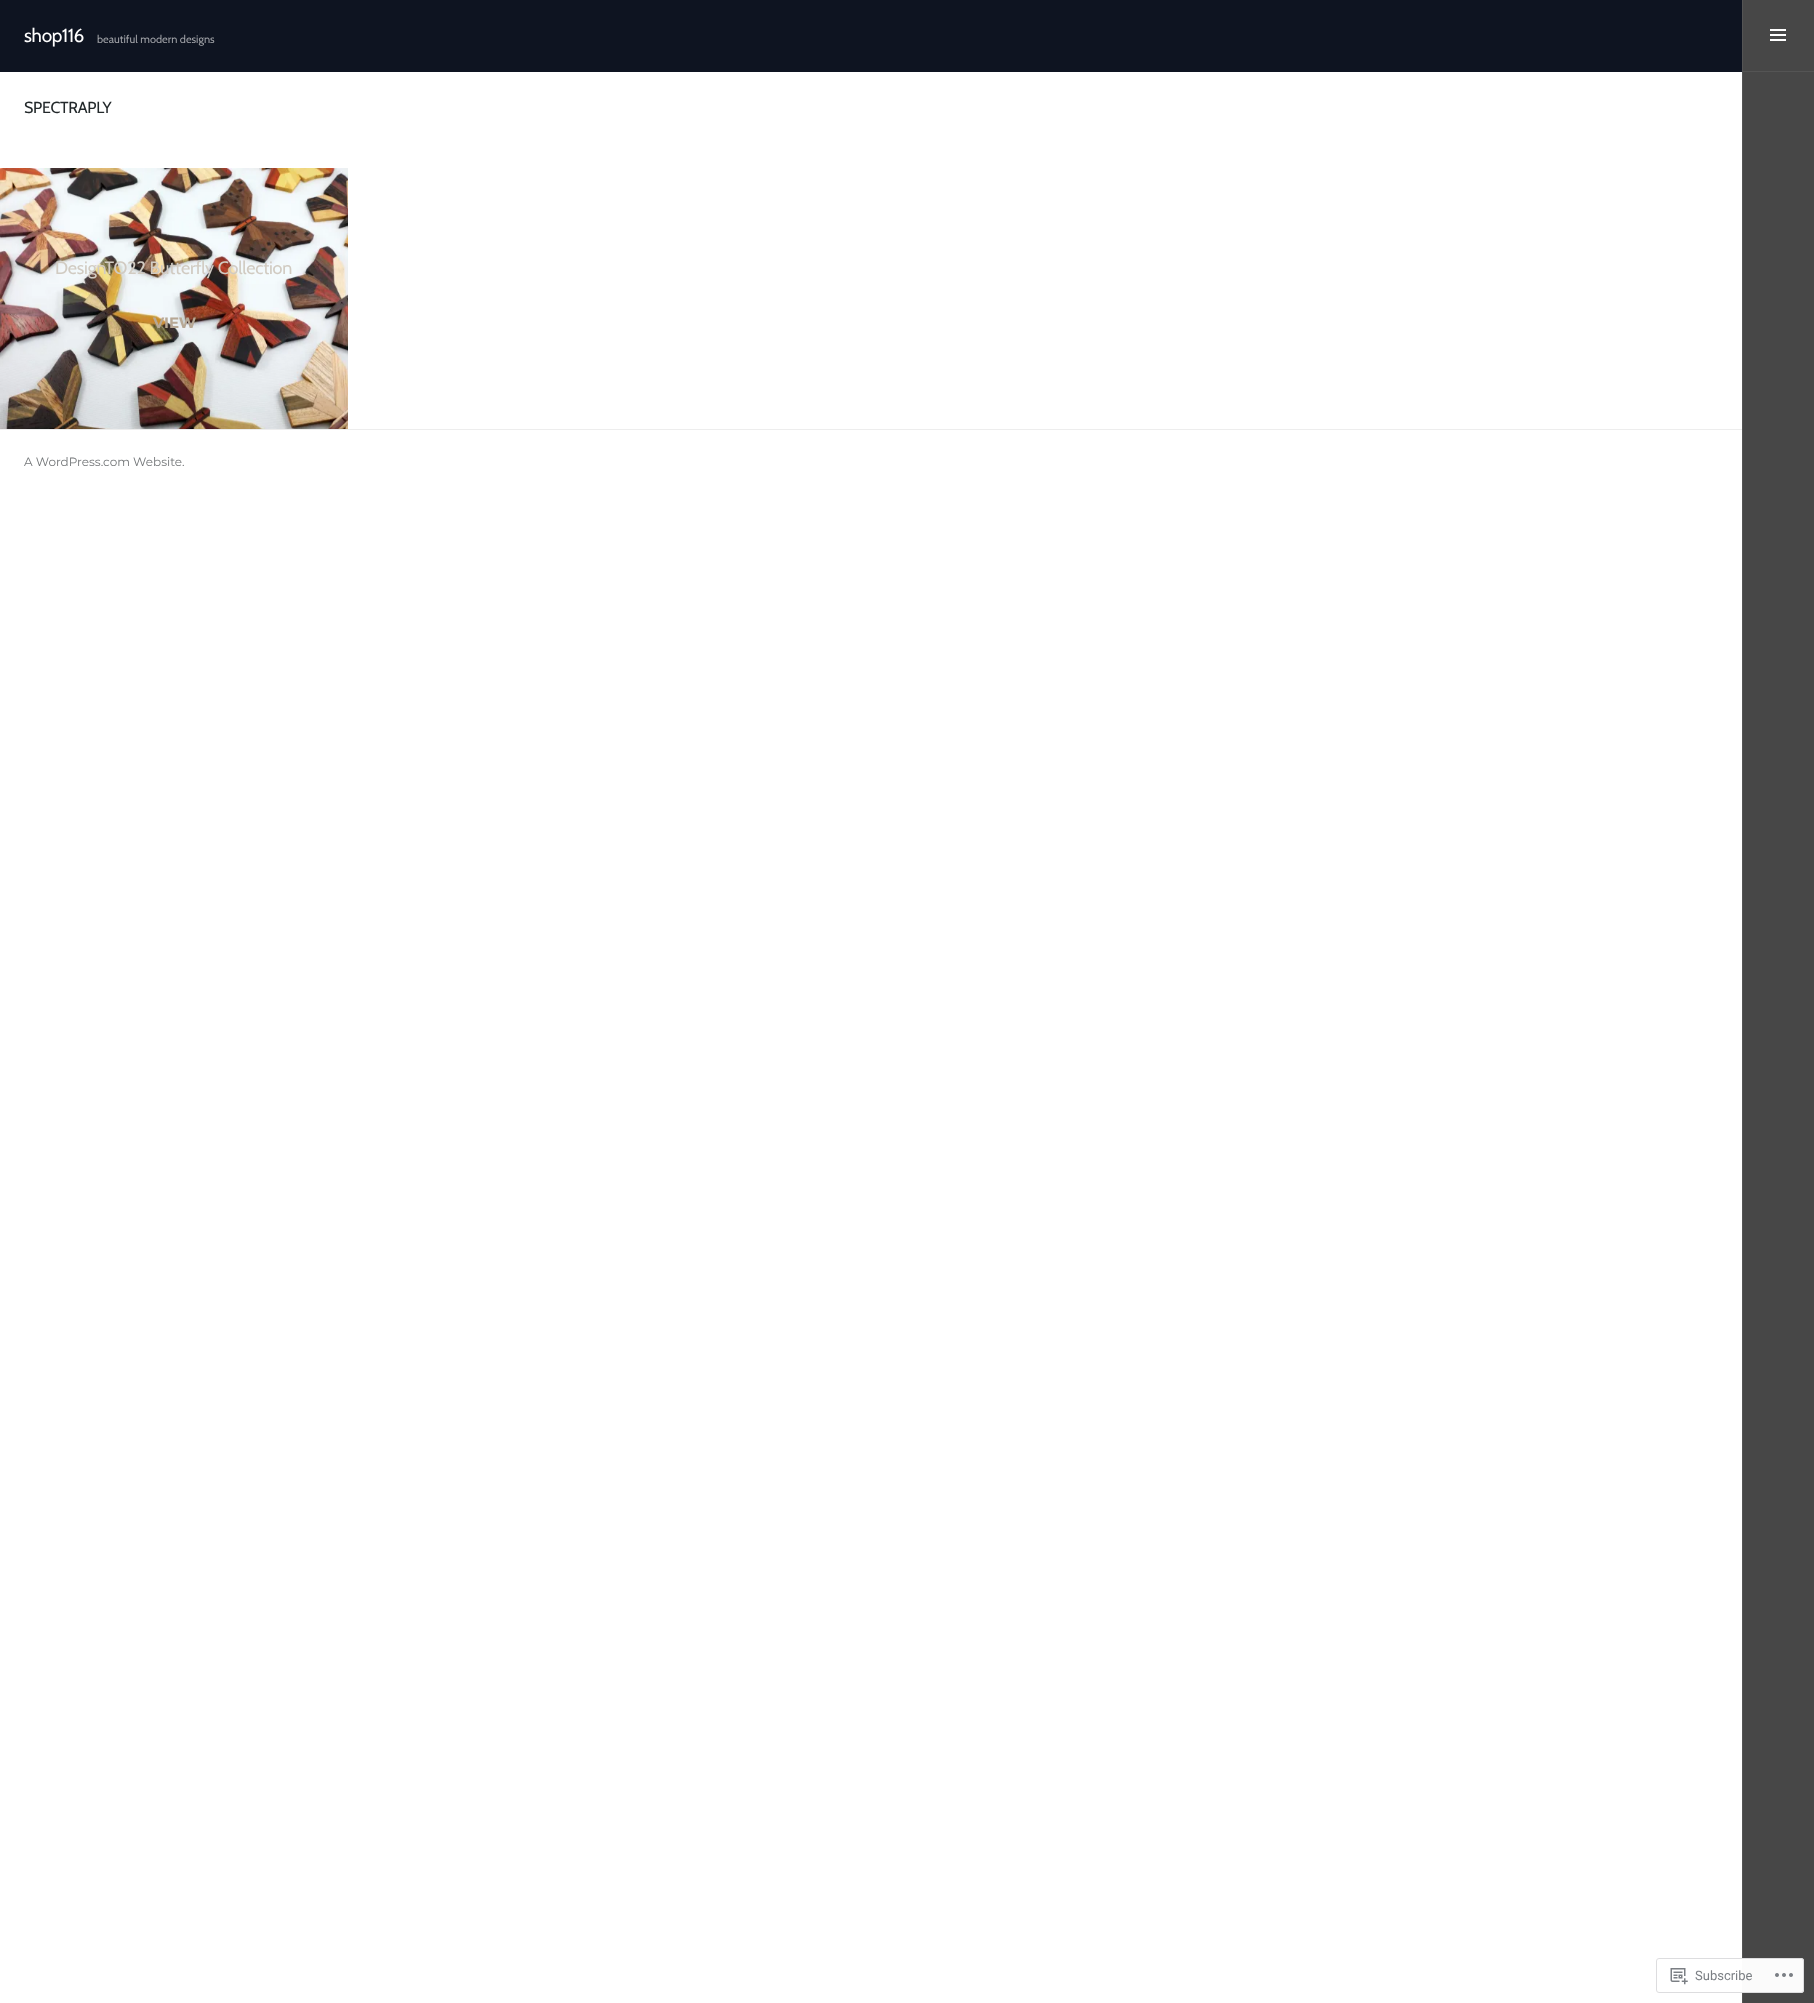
<!DOCTYPE html>
<meta charset="utf-8">
<style>body { margin: 0 } canvas { display: block }</style>
<canvas id="canvas" width="1814" height="2003"></canvas>
<script type="module">
  const canvas = document.getElementById("canvas");
  const g = canvas.getContext("2d");
  g.miterLimit = 4;
  g.fontKerning = "normal";
  function drawText(s, x, y, [font, color]) {
    g.font = font;
    g.fillStyle = color;
    g.fillText(s, x, y);
  }
  function fillBox(x, y, w, h, color) {
    g.fillStyle = color;
    g.fillRect(x, y, w, h);
  }
  function fillRounded(x, y, w, h, r, color) {
    g.fillStyle = color;
    g.beginPath();
    g.roundRect(x, y, w, h, r);
    g.fill();
  }
  async function drawPicture(src, x, y, w, h) {
    const img = new Image();
    img.src = src;
    await img.decode();
    g.drawImage(img, x, y, w, h);
  }

  const s1 = ["19px Cabin", "#FFFFFF"];
  const s2 = ["11px Cabin", "#9FA1A6"];
  const s3 = ["16px Cabin", "#23292B"];
  const s4 = ["18px Cabin", "#D1CBC2"];
  const s5 = ["bold 15px Montserrat", "#B7A895"];
  const s6 = ["12px Montserrat", "#737678"];
  const s7 = ["13px Roboto", "#7B7F84"];

  fillBox(0, 0, 1814, 2003, "#FFFFFF");
  fillBox(0, 0, 1742, 72, "#0E1421");
  g.letterSpacing = "-0.25px";
  drawText("shop116", 24, 42, s1);
  g.letterSpacing = "0px";
  drawText("beautiful modern designs", 97, 43, s2);
  fillBox(1743, 0, 71, 2003, "#474747");
  fillBox(1742, 0, 1, 2003, "#545454");
  fillBox(1742, 71, 72, 1, "#545454");
  await drawPicture("pic1.png", 1770, 29, 16, 12);
  g.letterSpacing = "-0.25px";
  drawText("SPECTRAPLY", 24, 113, s3);
  await drawPicture("pic2.png", 0, 168, 348, 261);
  g.letterSpacing = "-0.2px";
  drawText("DesignTO22 Butterfly Collection", 55, 274, s4);
  g.letterSpacing = "0px";
  drawText("VIEW", 153, 328, s5);
  fillBox(0, 429, 1742, 1, "#EDEDED");
  drawText("A WordPress.com Website.", 24, 466, s6);
  fillRounded(1656, 1958, 148, 35, 3, "rgba(255, 255, 255, 0.98)");
  g.beginPath();
  g.roundRect(1656.5, 1958.5, 147, 34, 2.5);
  g.strokeStyle = "rgba(220, 220, 222, 0.98)";
  g.stroke();
  await drawPicture("pic3.png", 1670, 1968, 18, 17);
  drawText("Subscribe", 1695, 1980, s7);
  await drawPicture("pic4.png", 1775, 1973, 18, 4);
</script>
